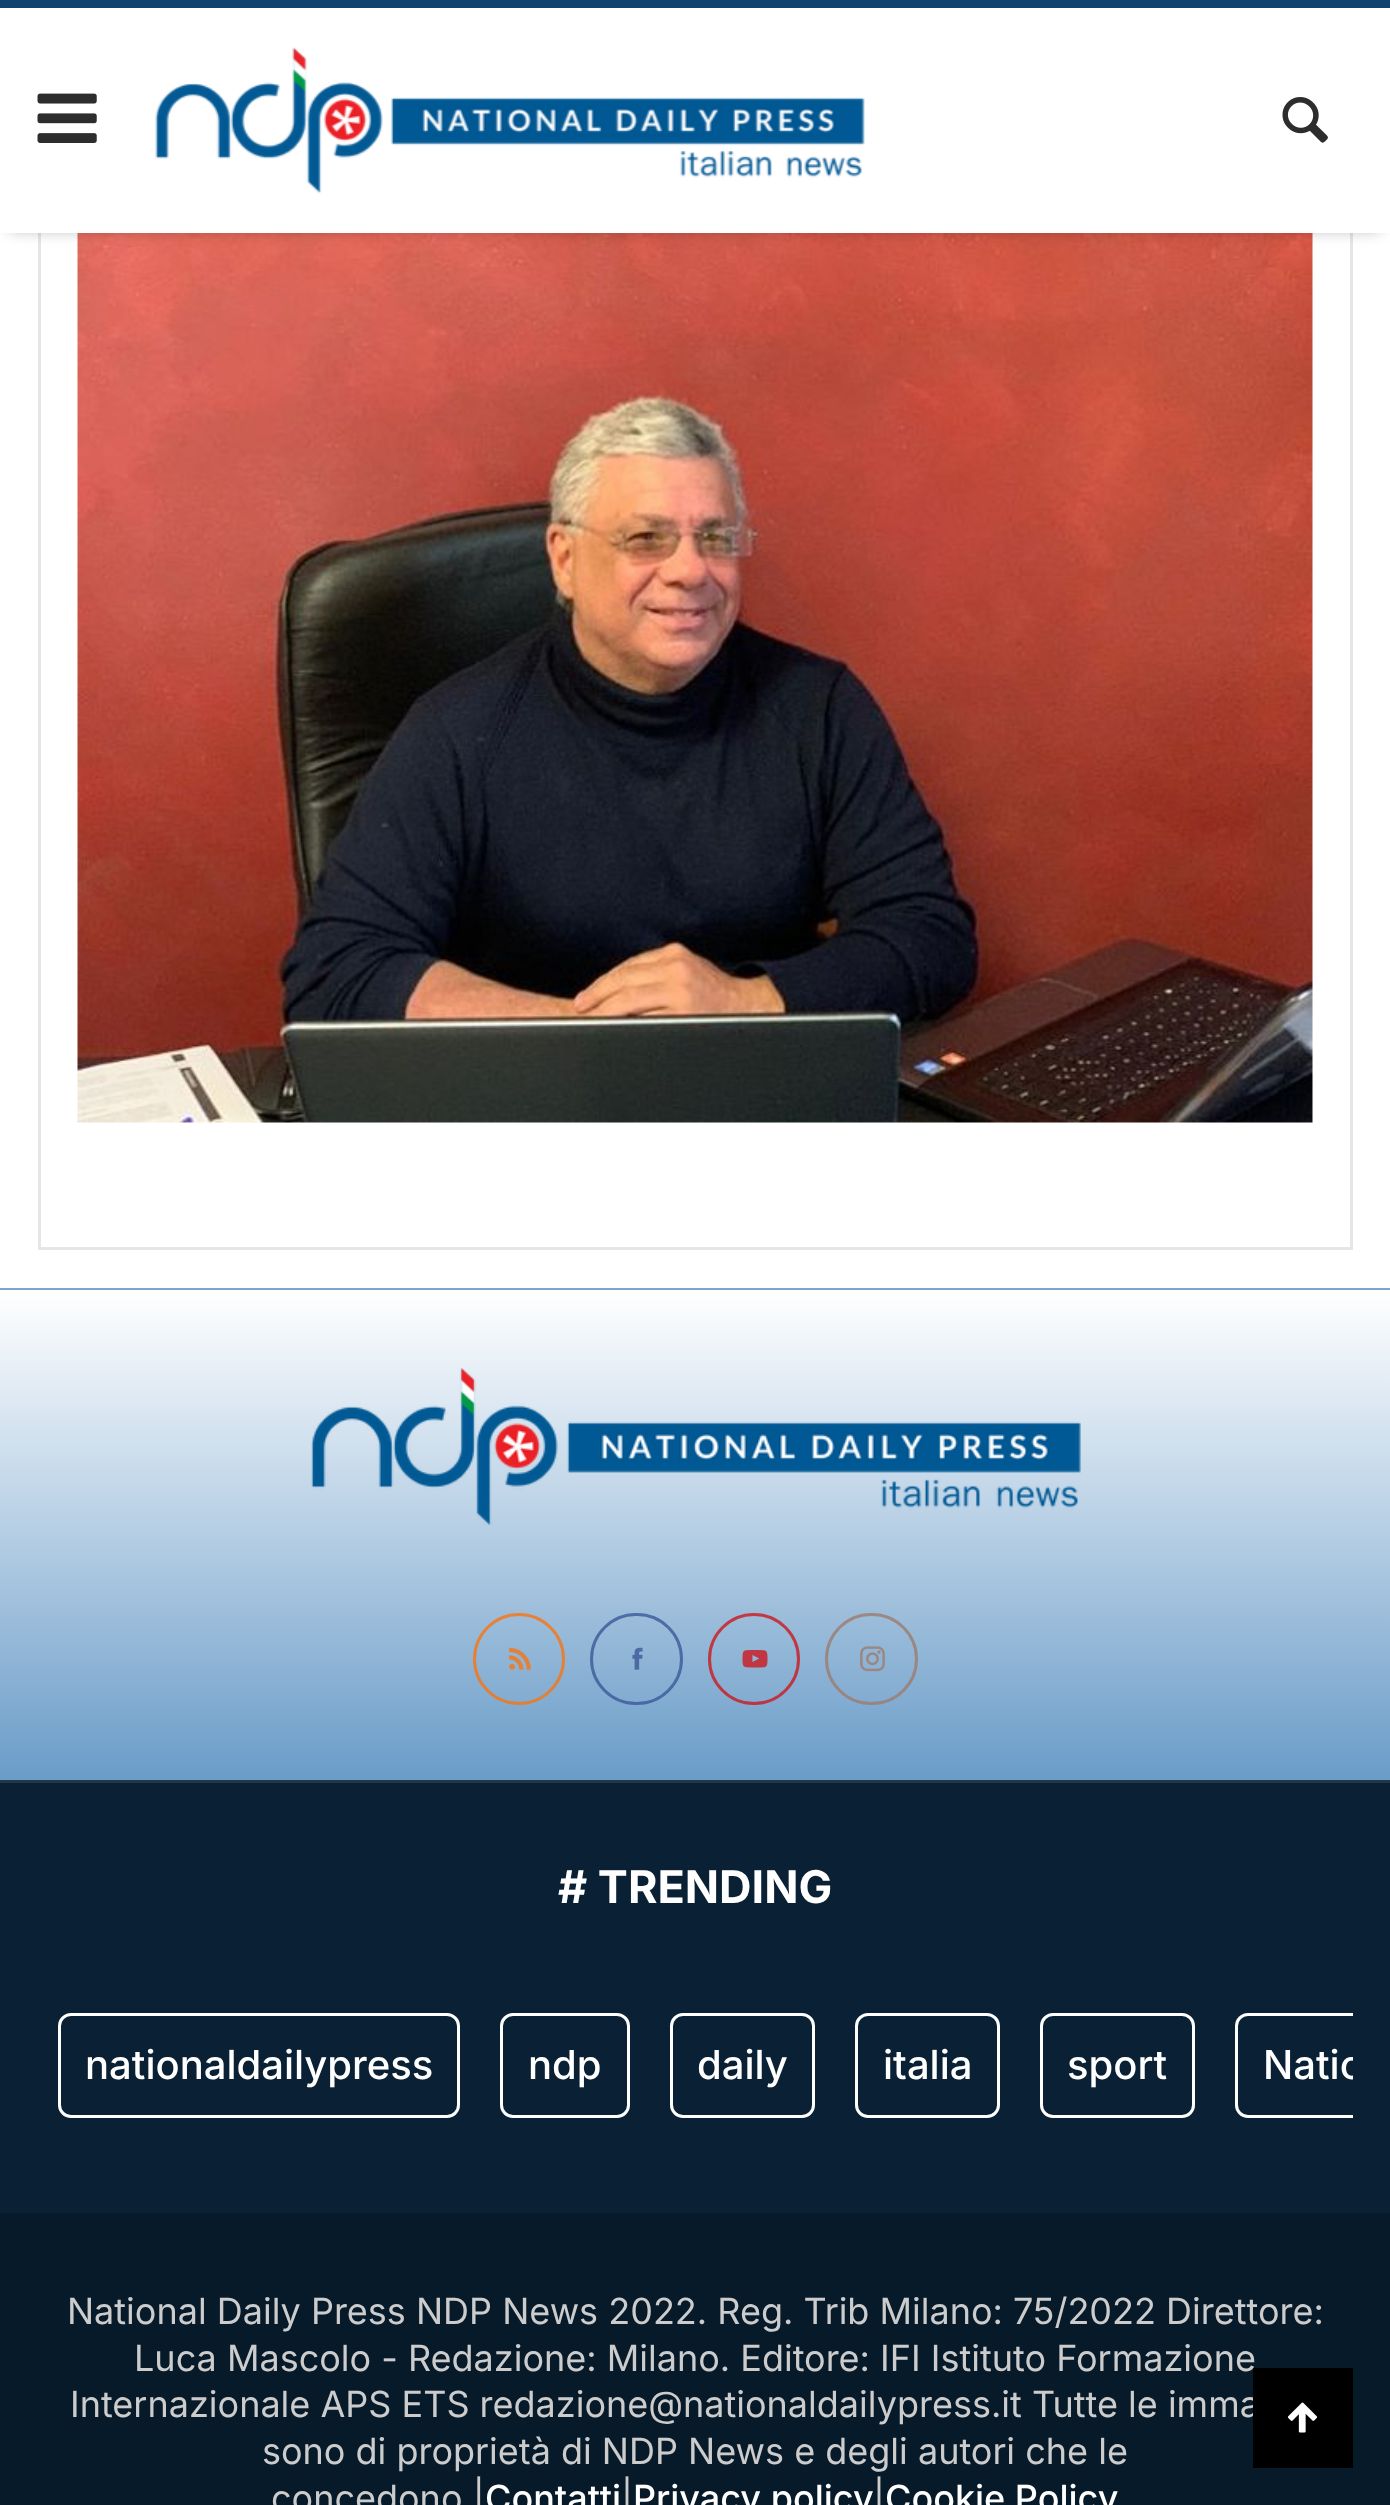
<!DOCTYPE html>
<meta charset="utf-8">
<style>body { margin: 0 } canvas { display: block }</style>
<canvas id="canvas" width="1390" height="2505"></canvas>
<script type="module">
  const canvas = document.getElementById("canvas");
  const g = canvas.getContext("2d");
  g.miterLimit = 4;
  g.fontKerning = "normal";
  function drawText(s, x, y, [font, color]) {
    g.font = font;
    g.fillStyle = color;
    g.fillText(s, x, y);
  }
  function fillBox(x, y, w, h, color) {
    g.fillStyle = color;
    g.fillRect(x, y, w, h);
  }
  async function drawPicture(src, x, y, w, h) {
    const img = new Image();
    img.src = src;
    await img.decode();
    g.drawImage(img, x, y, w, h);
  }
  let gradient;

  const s1 = ["bold 45px Inter", "#FFFFFF"];
  const s2 = ["500 40px Inter", "#FFFFFF"];
  const s3 = ["36px Inter", "#CCCCCC"];
  const s4 = ["500 36px Inter", "#FFFFFF"];

  fillBox(0, 0, 1390, 2505, "#FFFFFF");
  g.strokeStyle = "#E6E6E6";
  g.lineWidth = 3;
  g.strokeRect(39.5, -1.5, 1312, 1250);
  await drawPicture("pic1.png", 77, 233, 1236, 890);
  fillBox(0, 0, 1390, 8, "#11436F");
  g.fillStyle = "rgba(0, 0, 0, 0.3)";
  g.filter = "blur(7.5px)";
  g.beginPath();
  g.rect(10, 25, 1370, 205);
  g.fill();
  g.filter = "none";
  fillBox(0, 8, 1390, 225, "#FFFFFF");
  await drawPicture("pic2.png", 37, 93, 60, 50);
  await drawPicture("pic3.png", 155, 47, 710, 147);
  await drawPicture("pic4.png", 1282, 97, 46, 46);
  fillBox(0, 1783, 1390, 430, "#092035");
  gradient = g.createLinearGradient(695, 800, 695, 1290);
  gradient.addColorStop(0, "#FFFFFF");
  gradient.addColorStop(1, "#79A6CE");
  g.fillStyle = gradient;
  g.fillRect(0, 1288, 1390, 2);
  gradient = g.createLinearGradient(695, 1290, 695, 1780);
  gradient.addColorStop(0, "#FFFFFF");
  gradient.addColorStop(1, "#6A9CC8");
  g.fillStyle = gradient;
  g.fillRect(0, 1298, 1390, 482);
  await drawPicture("pic5.png", 311, 1368, 770, 157);
  g.beginPath();
  g.arc(519, 1659, 44.5, 0, Math.PI * 2);
  g.strokeStyle = "rgba(249, 116, 16, 0.8)";
  g.stroke();
  await drawPicture("pic6.png", 509, 1647, 22, 23);
  g.beginPath();
  g.roundRect(591.5, 1614.5, 90, 89, 44.5);
  g.strokeStyle = "rgba(59, 89, 152, 0.8)";
  g.stroke();
  await drawPicture("pic7.png", 632, 1647, 11, 23);
  g.beginPath();
  g.arc(754, 1659, 44.5, 0, Math.PI * 2);
  g.strokeStyle = "rgba(204, 24, 30, 0.8)";
  g.stroke();
  await drawPicture("pic8.png", 742, 1650, 26, 18);
  g.beginPath();
  g.roundRect(826.5, 1614.5, 90, 89, 44.5);
  g.strokeStyle = "rgba(156, 124, 110, 0.8)";
  g.stroke();
  await drawPicture("pic9.png", 860, 1646, 25, 26);
  fillBox(0, 1780, 1390, 3, "#223649");
  drawText("# TRENDING", 558, 1903, s1);
  g.beginPath();
  g.roundRect(59.5, 2014.5, 399, 102, 11.5);
  g.strokeStyle = "#FFFFFF";
  g.stroke();
  drawText("nationaldailypress", 85, 2079, s2);
  g.beginPath();
  g.roundRect(501.5, 2014.5, 127, 102, 11.5);
  g.stroke();
  drawText("ndp", 528, 2079, s2);
  g.beginPath();
  g.roundRect(671.5, 2014.5, 142, 102, 11.5);
  g.stroke();
  drawText("daily", 697, 2079, s2);
  g.beginPath();
  g.roundRect(856.5, 2014.5, 142, 102, 11.5);
  g.stroke();
  drawText("italia", 883, 2079, s2);
  g.beginPath();
  g.roundRect(1041.5, 2014.5, 152, 102, 11.5);
  g.stroke();
  drawText("sport", 1067, 2079, s2);
  g.save();
  g.beginPath();
  g.rect(38, 1993, 1315, 145);
  g.clip();
  g.beginPath();
  g.roundRect(1236.5, 2014.5, 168, 102, 11.5);
  g.stroke();
  drawText("Natio", 1263, 2079, s2);
  g.restore();
  fillBox(0, 2213, 1390, 292, "#071A2A");
  drawText("National Daily Press NDP News 2022. Reg. Trib Milano: 75/2022 Direttore:", 67, 2324, s3);
  drawText("Luca Mascolo - Redazione: Milano. Editore: IFI Istituto Formazione", 134, 2371, s3);
  drawText("Internazionale APS ETS redazione@nationaldailypress.it Tutte le imma", 70, 2417, s3);
  drawText("sono di proprietà di NDP News e degli autori che le", 262, 2464, s3);
  drawText("concedono.|", 271, 2511, s3);
  drawText("Contatti", 485, 2511, s4);
  drawText("|", 621, 2511, s3);
  drawText("Privacy policy", 633, 2511, s4);
  drawText("|", 873, 2511, s3);
  drawText("Cookie Policy", 885, 2511, s4);
  fillBox(1253, 2368, 100, 100, "#000000");
  await drawPicture("pic10.png", 1287, 2402, 31, 31);
</script>
